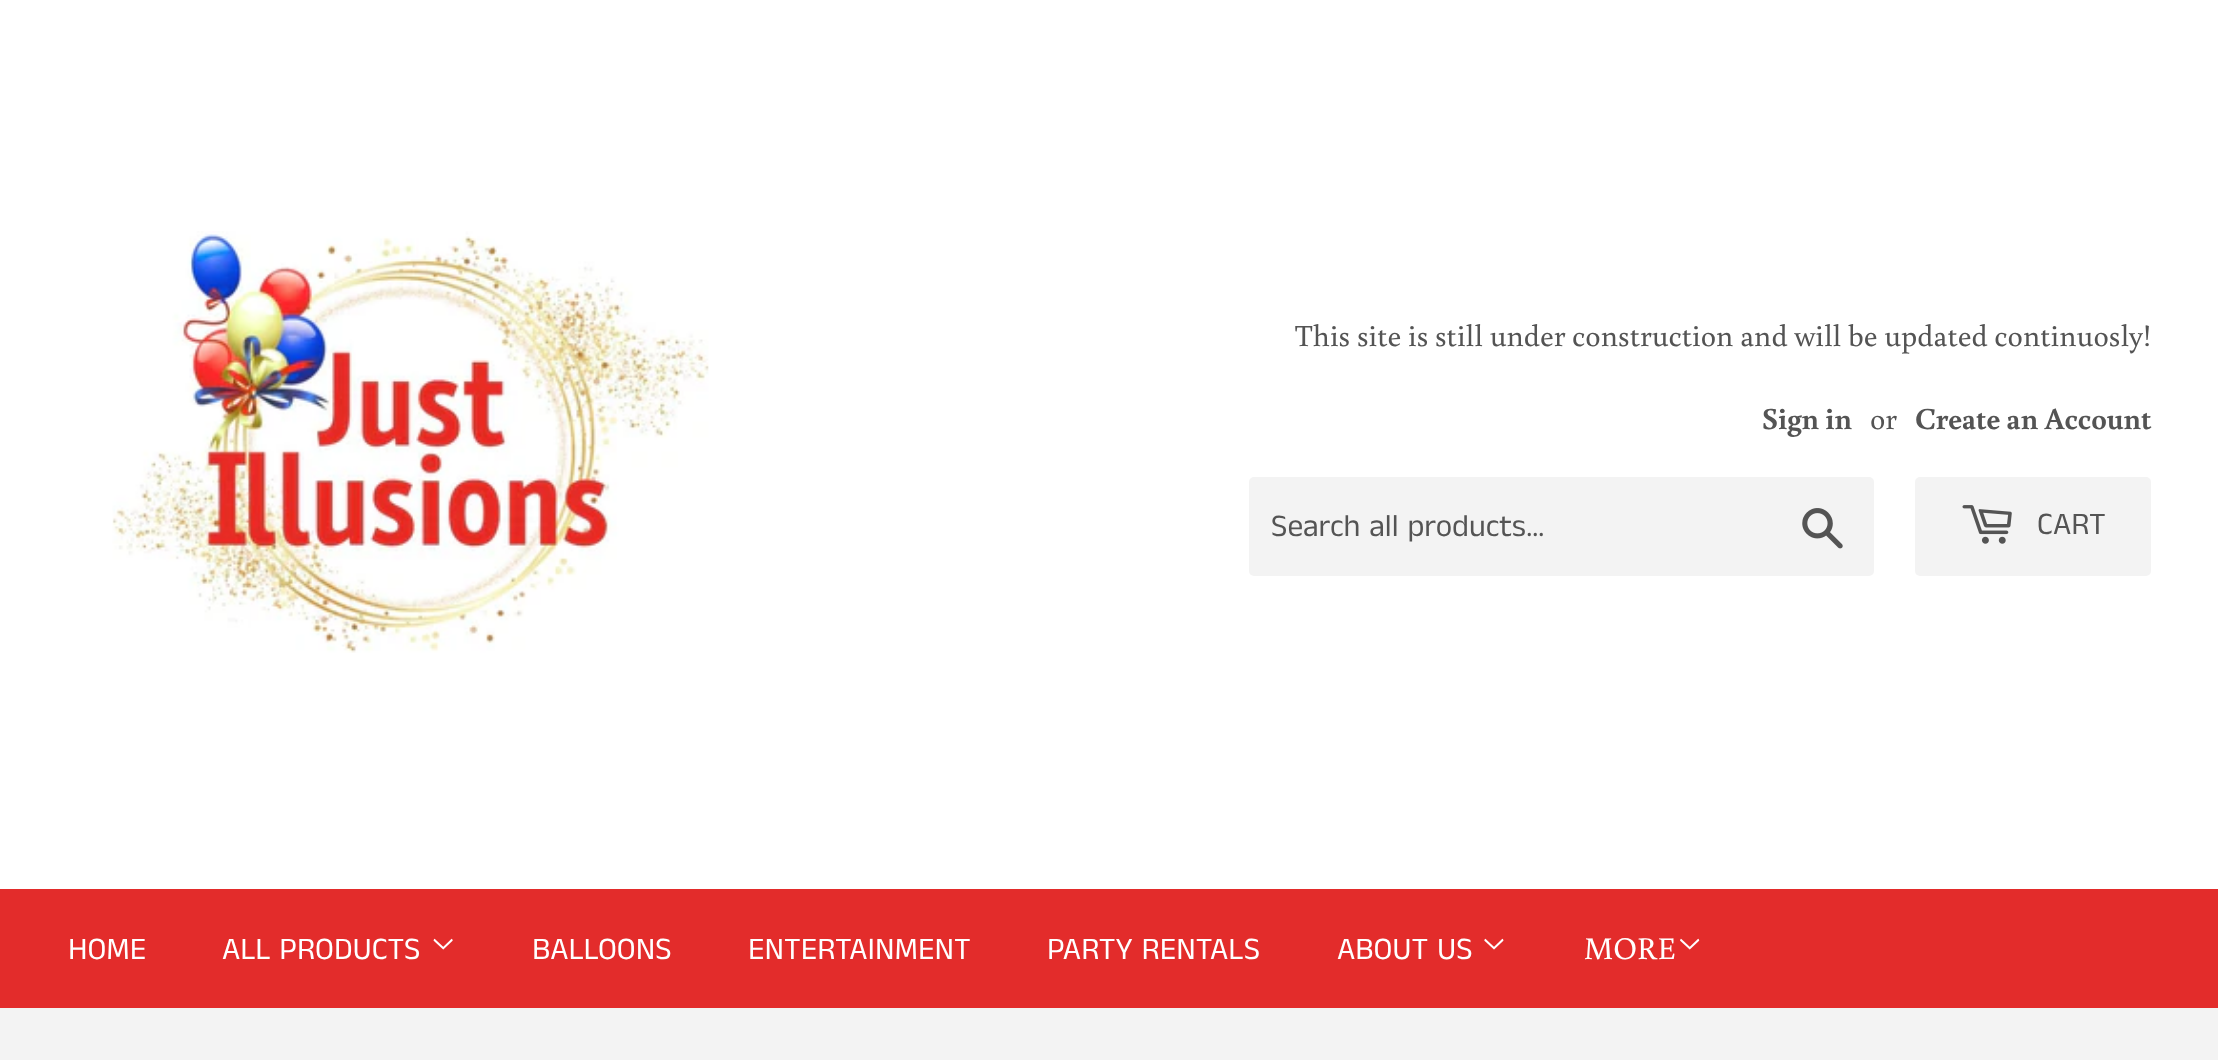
<!DOCTYPE html>
<meta charset="utf-8">
<style>body { margin: 0 } canvas { display: block }</style>
<canvas id="canvas" width="2218" height="1060"></canvas>
<script type="module">
  const canvas = document.getElementById("canvas");
  const g = canvas.getContext("2d");
  g.miterLimit = 4;
  g.fontKerning = "normal";
  function drawText(s, x, y, [font, color]) {
    g.font = font;
    g.fillStyle = color;
    g.fillText(s, x, y);
  }
  function fillBox(x, y, w, h, color) {
    g.fillStyle = color;
    g.fillRect(x, y, w, h);
  }
  function fillRounded(x, y, w, h, r, color) {
    g.fillStyle = color;
    g.beginPath();
    g.roundRect(x, y, w, h, r);
    g.fill();
  }
  async function drawPicture(src, x, y, w, h) {
    const img = new Image();
    img.src = src;
    await img.decode();
    g.drawImage(img, x, y, w, h);
  }

  const s1 = ["30.6px Buenard", "#545454"];
  const s2 = ["bold 30.6px Buenard", "#545454"];
  const s3 = ["31.5px Anek Tamil", "#545454"];
  const s4 = ["31.5px Anek Tamil", "#FFFFFF"];
  const s5 = ["31.5px Buenard", "#FFFFFF"];

  fillBox(0, 0, 2218, 1060, "#F3F3F3");
  fillBox(0, 0, 2218, 889, "#FFFFFF");
  await drawPicture("pic1.png", 112, 231, 597, 422);
  drawText("This site is still under construction and will be updated continuosly!", 1295, 346, s1);
  drawText("Sign in", 1762, 429, s2);
  drawText("or", 1870, 429, s1);
  drawText("Create an Account", 1915, 429, s2);
  fillRounded(1249, 477, 625, 99, 5, "#F3F3F3");
  drawText("Search all products...", 1271, 536, s3);
  await drawPicture("pic2.png", 1802, 508, 41, 41);
  fillRounded(1915, 477, 236, 99, 5, "#F3F3F3");
  await drawPicture("pic3.png", 1962, 505, 50, 39);
  drawText("CART", 2037, 534, s3);
  fillBox(0, 889, 2218, 119, "#E32C2B");
  drawText("HOME", 68, 959, s4);
  drawText("ALL PRODUCTS", 222, 959, s4);
  await drawPicture("pic4.png", 433, 938, 20, 12);
  drawText("BALLOONS", 532, 959, s4);
  drawText("ENTERTAINMENT", 748, 959, s4);
  drawText("PARTY RENTALS", 1047, 959, s4);
  drawText("ABOUT US", 1337, 959, s4);
  await drawPicture("pic5.png", 1484, 938, 20, 12);
  drawText("MORE", 1584, 959, s5);
  await drawPicture("pic6.png", 1680, 938, 20, 12);
</script>
